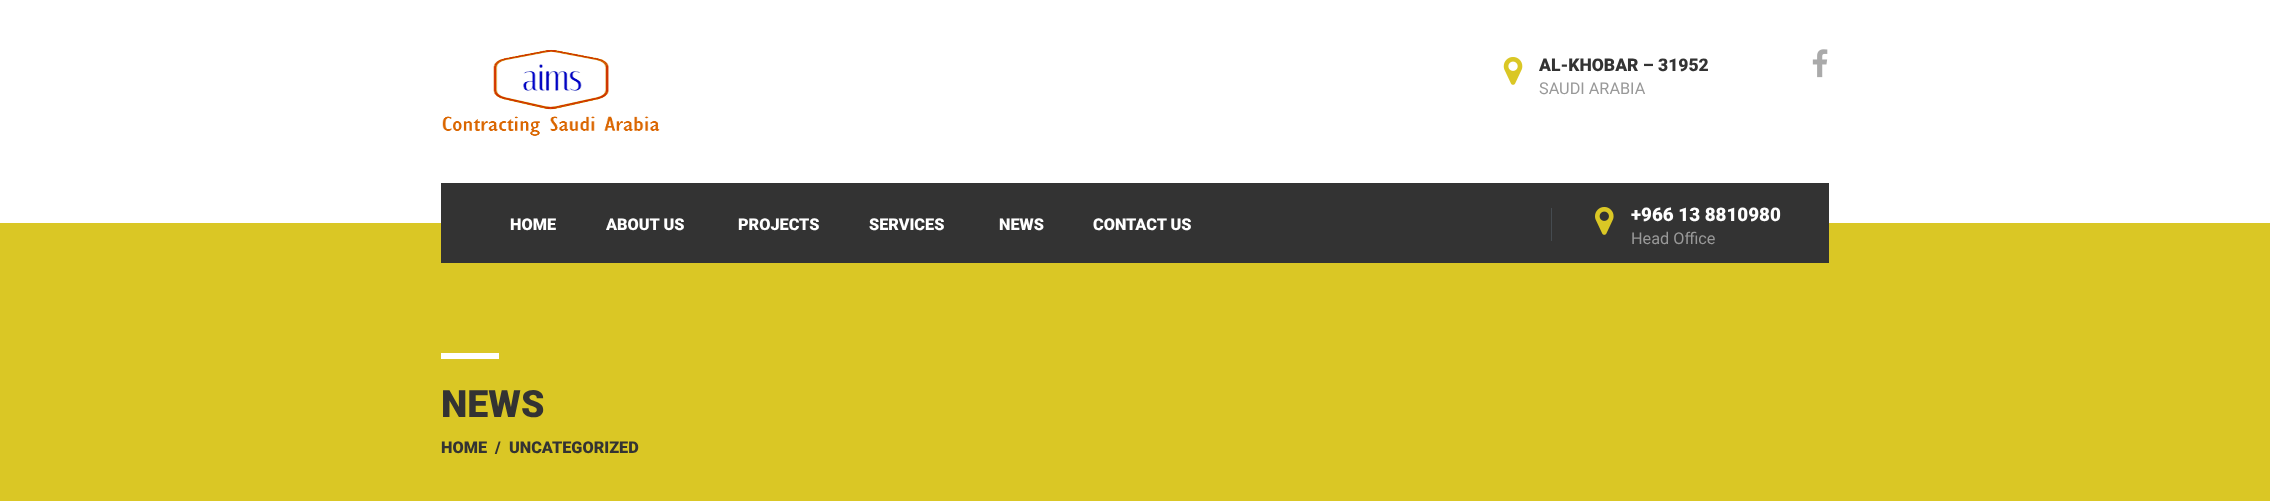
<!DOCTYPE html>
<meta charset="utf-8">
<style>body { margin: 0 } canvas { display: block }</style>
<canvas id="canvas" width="2270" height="501"></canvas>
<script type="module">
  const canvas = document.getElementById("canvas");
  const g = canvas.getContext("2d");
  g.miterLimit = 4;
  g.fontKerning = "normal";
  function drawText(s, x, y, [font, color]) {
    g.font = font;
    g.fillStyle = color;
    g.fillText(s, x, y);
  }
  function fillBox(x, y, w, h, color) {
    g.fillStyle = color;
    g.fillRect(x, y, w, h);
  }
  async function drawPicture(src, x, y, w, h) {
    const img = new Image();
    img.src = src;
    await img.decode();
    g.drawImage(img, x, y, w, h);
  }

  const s1 = ["900 17.5px Roboto", "#333333"];
  const s2 = ["16.25px Roboto", "#999999"];
  const s3 = ["900 16.25px Roboto", "#FFFFFF"];
  const s4 = ["900 18.75px Roboto", "#FFFFFF"];
  const s5 = ["900 37.5px Roboto", "#333333"];
  const s6 = ["900 16.25px Roboto", "#333333"];

  fillBox(0, 0, 2270, 501, "#FFFFFF");
  await drawPicture("pic1.png", 442, 49, 218, 87);
  await drawPicture("pic2.png", 1503, 57, 20, 28);
  drawText("AL-KHOBAR – 31952", 1539, 71, s1);
  drawText("SAUDI ARABIA", 1539, 94, s2);
  await drawPicture("pic3.png", 1812, 49, 16, 29);
  fillBox(0, 223, 2270, 278, "#DAC725");
  fillBox(441, 183, 1388, 80, "#333333");
  drawText("HOME", 510, 230, s3);
  drawText("ABOUT US", 606, 230, s3);
  drawText("PROJECTS", 738, 230, s3);
  drawText("SERVICES", 869, 230, s3);
  drawText("NEWS", 999, 230, s3);
  drawText("CONTACT US", 1093, 230, s3);
  fillBox(1551, 208, 1, 33, "#454B50");
  await drawPicture("pic4.png", 1595, 207, 19, 28);
  drawText("+966 13 8810980", 1631, 221, s4);
  drawText("Head Office", 1631, 244, s2);
  fillBox(441, 353, 58, 6, "#FFFFFF");
  drawText("NEWS", 441, 417, s5);
  drawText("HOME", 441, 453, s6);
  drawText("/", 495, 453, s6);
  drawText("UNCATEGORIZED", 509, 453, s6);
</script>
